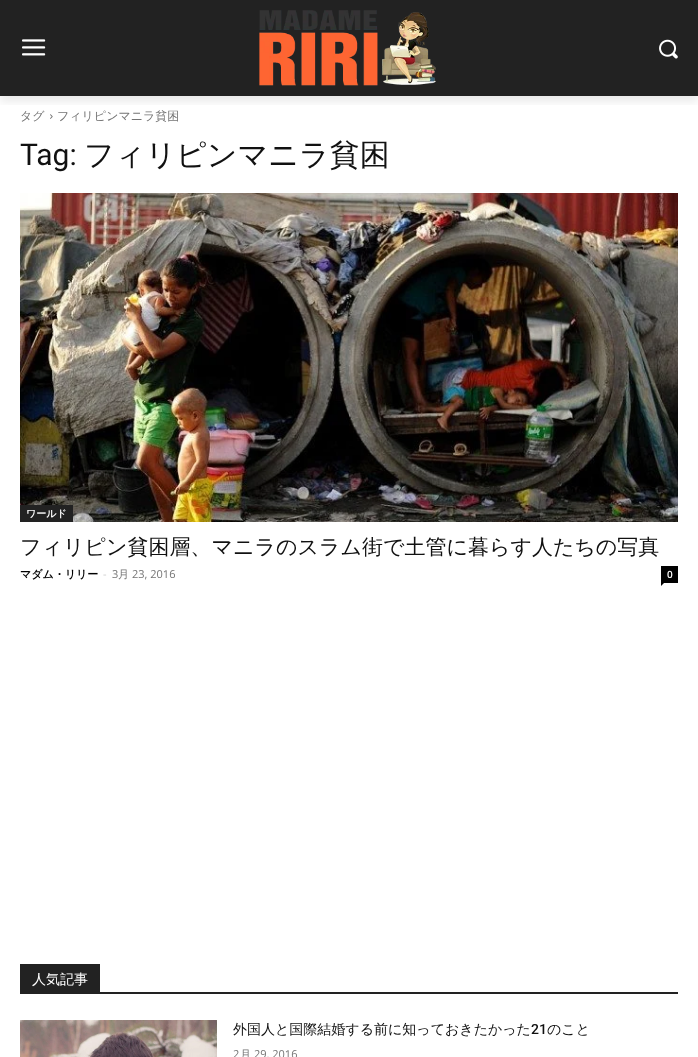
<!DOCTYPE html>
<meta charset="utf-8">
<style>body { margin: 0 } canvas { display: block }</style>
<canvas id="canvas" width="698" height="1057"></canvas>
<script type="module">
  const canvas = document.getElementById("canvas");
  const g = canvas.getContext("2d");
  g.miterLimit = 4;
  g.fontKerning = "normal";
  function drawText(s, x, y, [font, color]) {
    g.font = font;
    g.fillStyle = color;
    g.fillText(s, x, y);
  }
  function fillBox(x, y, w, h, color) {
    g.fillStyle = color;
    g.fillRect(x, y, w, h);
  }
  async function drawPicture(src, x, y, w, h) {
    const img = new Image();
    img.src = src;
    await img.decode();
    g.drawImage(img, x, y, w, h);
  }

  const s1 = ["500 12px WenQuanYi Zen Hei", "#747474"];
  const s2 = ["30px Roboto", "#111111"];
  const s3 = ["500 30px WenQuanYi Zen Hei", "#111111"];
  const s4 = ["bold 10px WenQuanYi Zen Hei", "#FFFFFF"];
  const s5 = ["500 21px WenQuanYi Zen Hei", "#111111"];
  const s6 = ["bold 11px WenQuanYi Zen Hei", "#000000"];
  const s7 = ["11px Open Sans", "#CCCCCC"];
  const s8 = ["11px Open Sans", "#747474"];
  const s9 = ["500 11px WenQuanYi Zen Hei", "#747474"];
  const s10 = ["600 10px Open Sans", "#FFFFFF"];
  const s11 = ["500 14px WenQuanYi Zen Hei", "#FFFFFF"];
  const s12 = ["500 14px WenQuanYi Zen Hei", "#111111"];
  const s13 = ["500 14px Roboto", "#111111"];

  fillBox(0, 0, 698, 1057, "#FFFFFF");
  fillBox(0, 0, 698, 96, "#222222");
  await drawPicture("pic1.png", 22, 39, 24, 17);
  await drawPicture("pic2.png", 259, 10, 177, 76);
  await drawPicture("pic3.png", 659, 39, 19, 20);
  await drawPicture("pic4.png", 50, 114, 3, 5);
  g.save();
  g.beginPath();
  g.rect(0, 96, 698, 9);
  g.clip();
  g.fillStyle = "rgba(0, 0, 0, 0.08)";
  g.filter = "blur(4px)";
  g.beginPath();
  g.rect(0, 6, 698, 96);
  g.fill();
  g.filter = "none";
  g.restore();
  drawText("タグ", 20, 120, s1);
  drawText("フィリピンマニラ貧困", 57, 120, s1);
  drawText("Tag:", 20, 165, s2);
  drawText("フィリピンマニラ貧困", 84, 165, s3);
  await drawPicture("pic5.png", 20, 193, 658, 329);
  fillBox(20, 505, 53, 17, "#222222");
  drawText("ワールド", 26, 517, s4);
  drawText("フィリピン貧困層、マニラのスラム街で土管に暮らす人たちの写真", 20, 554, s5);
  drawText("マダム・リリー", 20, 578, s6);
  drawText("-", 103, 578, s7);
  drawText("3", 112, 578, s8);
  drawText("月", 118, 578, s9);
  drawText("23, 2016", 132, 578, s8);
  fillBox(661, 566, 17, 17, "#000000");
  drawText("0", 667, 578, s10);
  g.fillStyle = "#000000";
  g.beginPath();
  g.moveTo(661, 583);
  g.lineTo(664, 583);
  g.lineTo(661, 586);
  g.closePath();
  g.fill();
  fillBox(20, 992, 658, 2, "#222222");
  fillBox(20, 964, 80, 28, "#222222");
  drawText("人気記事", 32, 984, s11);
  await drawPicture("pic6.png", 20, 1020, 197, 37);
  drawText("外国人と国際結婚する前に知っておきたかった", 233, 1034, s12);
  drawText("21", 531, 1034, s13);
  drawText("のこと", 547, 1034, s12);
  drawText("2", 233, 1058, s8);
  drawText("月", 240, 1058, s9);
  drawText("29, 2016", 254, 1058, s8);
</script>
